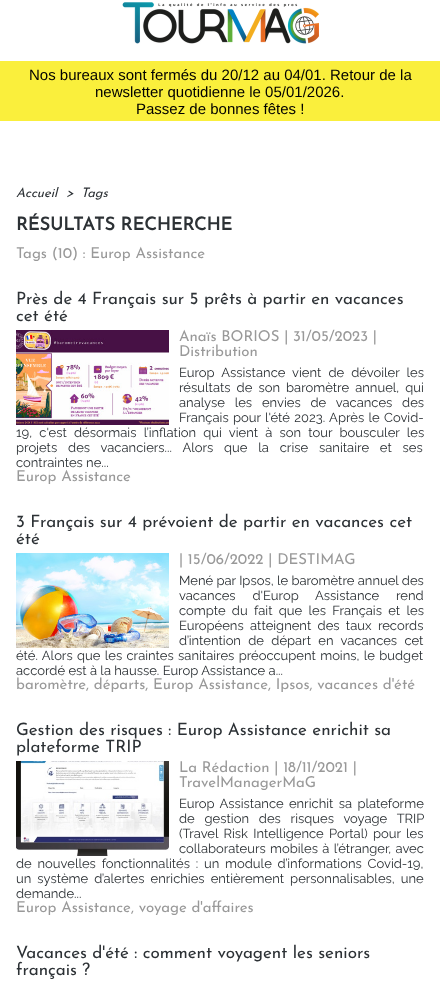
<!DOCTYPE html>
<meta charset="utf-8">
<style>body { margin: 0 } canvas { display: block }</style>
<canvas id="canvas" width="440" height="984"></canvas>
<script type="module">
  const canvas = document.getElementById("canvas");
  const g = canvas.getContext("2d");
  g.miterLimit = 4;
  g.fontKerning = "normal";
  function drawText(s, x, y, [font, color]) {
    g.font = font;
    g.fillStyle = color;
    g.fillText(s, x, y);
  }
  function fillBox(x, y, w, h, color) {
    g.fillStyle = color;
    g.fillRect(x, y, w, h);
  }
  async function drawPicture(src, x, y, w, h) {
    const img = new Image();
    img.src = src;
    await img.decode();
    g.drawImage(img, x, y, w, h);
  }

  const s1 = ["15px Liberation Sans", "#000000"];
  const s2 = ["italic 100 13px Josefin Sans", "#2C3135"];
  const s3 = ["bold 18px Josefin Sans", "#2C3135"];
  const s4 = ["100 15px Josefin Sans", "#999999"];
  const s5 = ["100 17px Josefin Sans", "#2C3135"];
  const s6 = ["100 13px Raleway", "#2C3135"];

  fillBox(0, 0, 440, 984, "#FFFFFF");
  await drawPicture("pic1.png", 122, 2, 197, 42);
  fillBox(0, 61, 440, 60, "#FAEF3C");
  drawText("Nos bureaux sont fermés du 20/12 au 04/01. Retour de la", 29, 80, s1);
  drawText("newsletter quotidienne le 05/01/2026.", 95, 97, s1);
  drawText("Passez de bonnes fêtes !", 136, 114, s1);
  drawText("Accueil", 16, 197, s2);
  drawText(">", 66, 197, s2);
  drawText("Tags", 81, 197, s2);
  drawText("RÉSULTATS RECHERCHE", 16, 230, s3);
  drawText("Tags (10) : Europ Assistance", 16, 258, s4);
  drawText("Près de 4 Français sur 5 prêts à partir en vacances", 16, 304, s5);
  drawText("cet été", 16, 321, s5);
  drawText("Anaïs BORIOS | 31/05/2023 |", 179, 341, s4);
  drawText("Distribution", 179, 356, s4);
  g.wordSpacing = "3.75px";
  drawText("Europ Assistance vient de dévoiler les", 179, 377, s6);
  g.wordSpacing = "2.75px";
  drawText("résultats de son baromètre annuel, qui", 179, 392, s6);
  g.wordSpacing = "6.5px";
  drawText("analyse les envies de vacances des", 179, 407, s6);
  g.wordSpacing = "1px";
  drawText("Français pour l'été 2023. Après le Covid-", 179, 422, s6);
  g.wordSpacing = "3.9px";
  drawText("19, c'est désormais l’inflation qui vient à son tour bousculer les", 16, 437, s6);
  g.wordSpacing = "7.5px";
  drawText("projets des vacanciers... Alors que la crise sanitaire et ses", 16, 452, s6);
  g.wordSpacing = "0px";
  drawText("contraintes ne...", 16, 467, s6);
  drawText("Europ Assistance", 16, 481, s4);
  await drawPicture("pic2.png", 16, 330, 153, 95);
  drawText("3 Français sur 4 prévoient de partir en vacances cet", 16, 527, s5);
  drawText("été", 16, 544, s5);
  drawText("| 15/06/2022 | DESTIMAG", 179, 564, s4);
  drawText("Mené par Ipsos, le baromètre annuel des", 179, 585, s6);
  g.wordSpacing = "13.5px";
  drawText("vacances d'Europ Assistance rend", 179, 600, s6);
  g.wordSpacing = "3px";
  drawText("compte du fait que les Français et les", 179, 615, s6);
  drawText("Européens atteignent des taux records", 179, 630, s6);
  g.wordSpacing = "4px";
  drawText("d’intention de départ en vacances cet", 179, 645, s6);
  g.wordSpacing = "1px";
  drawText("été. Alors que les craintes sanitaires préoccupent moins, le budget", 16, 660, s6);
  g.wordSpacing = "0px";
  drawText("accordé est à la hausse. Europ Assistance a...", 16, 675, s6);
  drawText("baromètre, départs, Europ Assistance, Ipsos, vacances d'été", 16, 689, s4);
  await drawPicture("pic3.png", 16, 553, 153, 95);
  drawText("Gestion des risques : Europ Assistance enrichit sa", 16, 735, s5);
  drawText("plateforme TRIP", 16, 752, s5);
  drawText("La Rédaction | 18/11/2021 |", 179, 772, s4);
  drawText("TravelManagerMaG", 179, 787, s4);
  g.wordSpacing = "2px";
  drawText("Europ Assistance enrichit sa plateforme", 179, 808, s6);
  g.wordSpacing = "6.5px";
  drawText("de gestion des risques voyage TRIP", 179, 823, s6);
  g.wordSpacing = "2px";
  drawText("(Travel Risk Intelligence Portal) pour les", 179, 838, s6);
  g.wordSpacing = "1px";
  drawText("collaborateurs mobiles à l’étranger, avec", 179, 853, s6);
  g.wordSpacing = "2.5px";
  drawText("de nouvelles fonctionnalités : un module d’informations Covid-19,", 16, 868, s6);
  g.wordSpacing = "2.75px";
  drawText("un système d’alertes enrichies entièrement personnalisables, une", 16, 883, s6);
  g.wordSpacing = "0px";
  drawText("demande...", 16, 898, s6);
  drawText("Europ Assistance, voyage d'affaires", 16, 912, s4);
  await drawPicture("pic4.png", 16, 761, 153, 95);
  drawText("Vacances d'été : comment voyagent les seniors", 16, 958, s5);
  drawText("français ?", 16, 975, s5);
</script>
